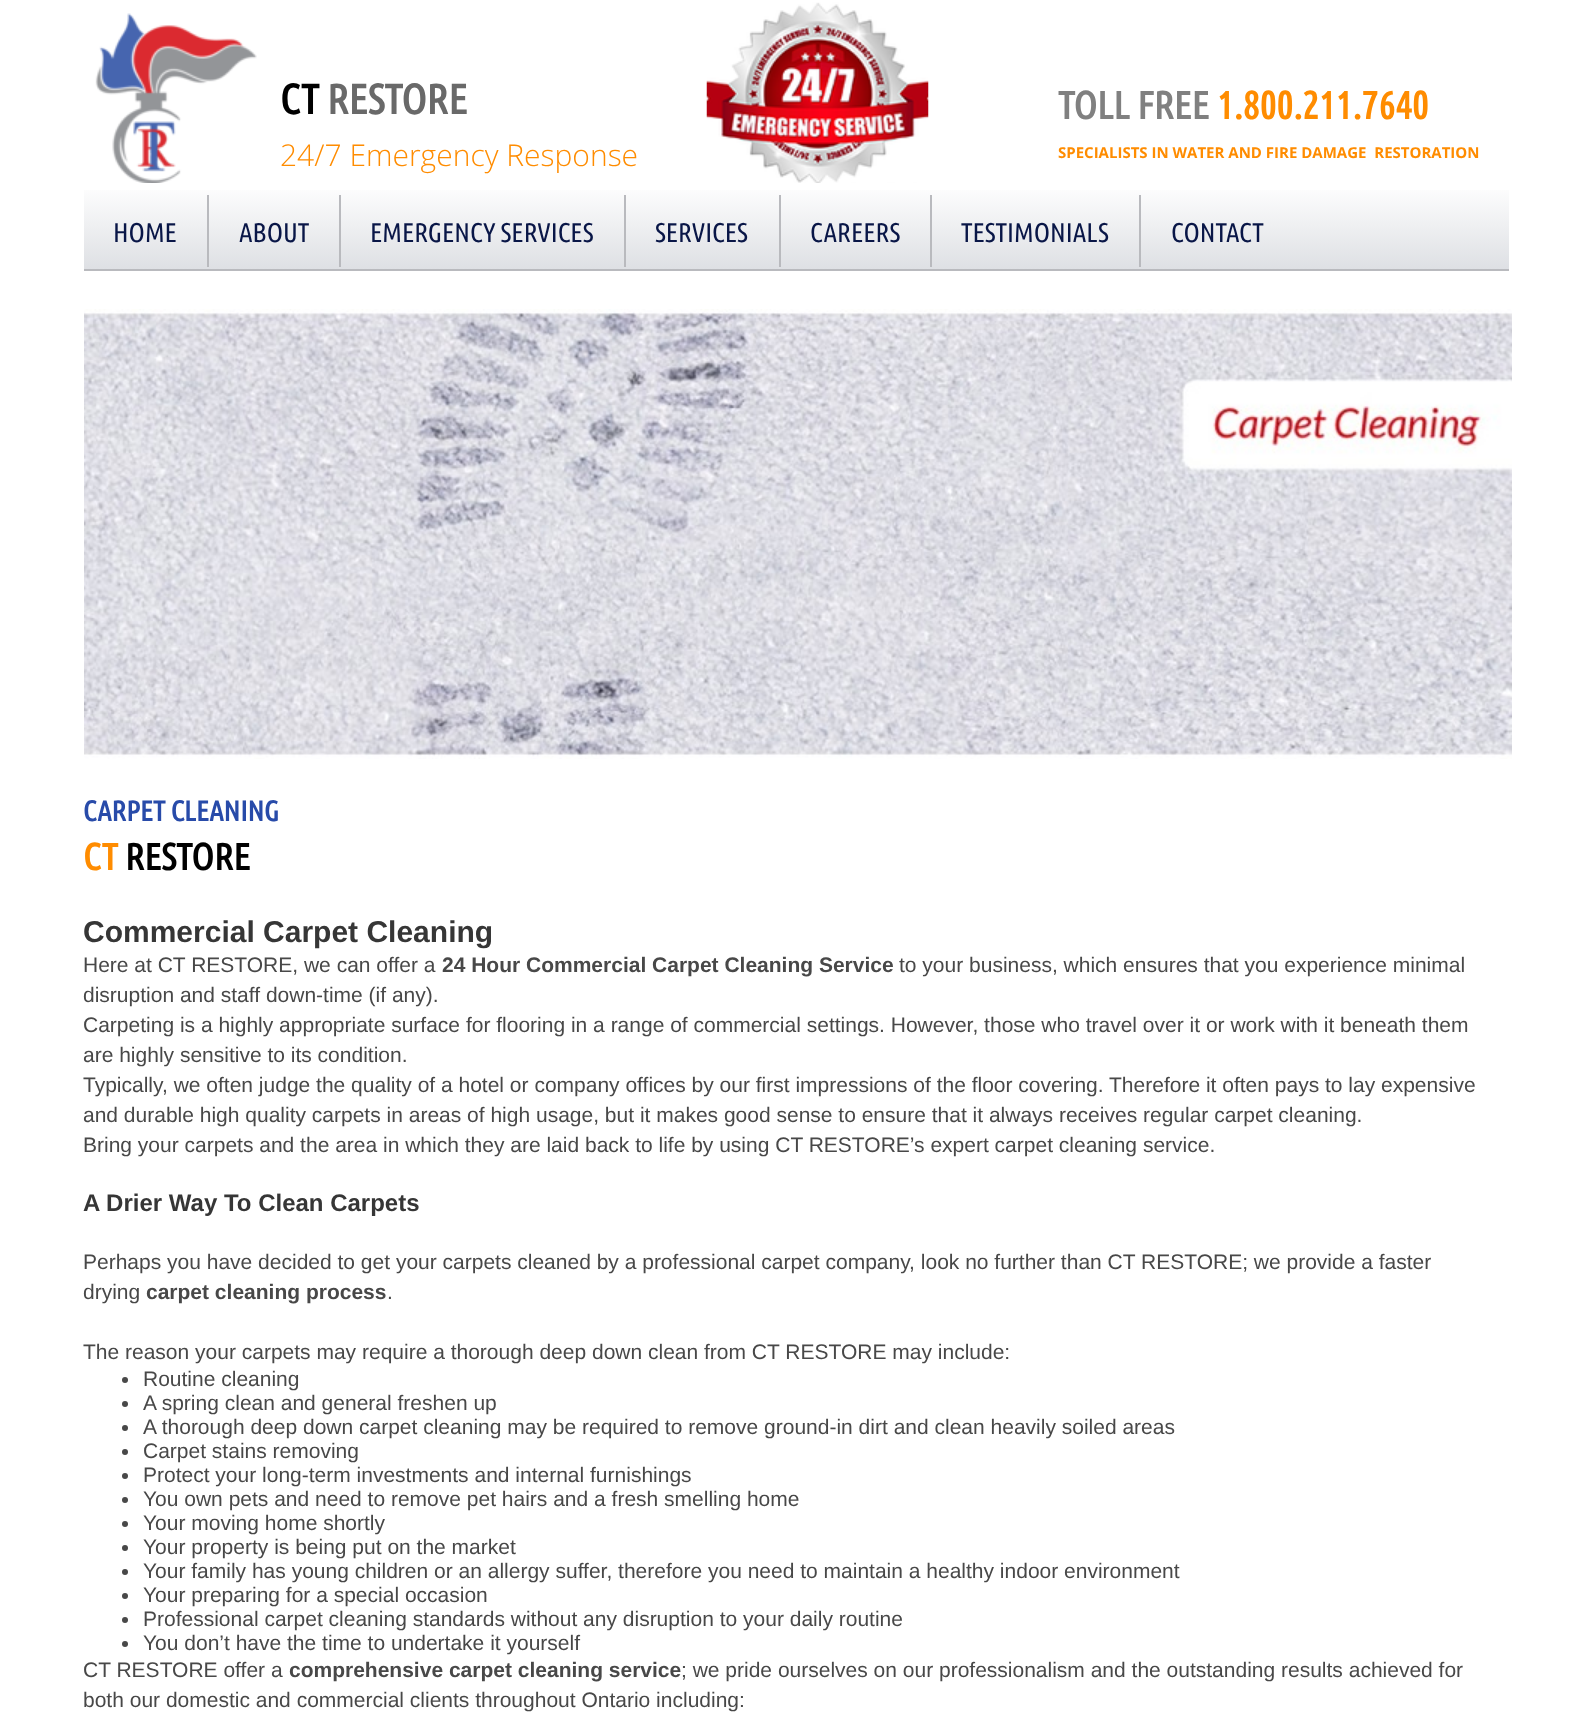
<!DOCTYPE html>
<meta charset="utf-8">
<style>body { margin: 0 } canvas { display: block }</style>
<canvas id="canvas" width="1591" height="1717"></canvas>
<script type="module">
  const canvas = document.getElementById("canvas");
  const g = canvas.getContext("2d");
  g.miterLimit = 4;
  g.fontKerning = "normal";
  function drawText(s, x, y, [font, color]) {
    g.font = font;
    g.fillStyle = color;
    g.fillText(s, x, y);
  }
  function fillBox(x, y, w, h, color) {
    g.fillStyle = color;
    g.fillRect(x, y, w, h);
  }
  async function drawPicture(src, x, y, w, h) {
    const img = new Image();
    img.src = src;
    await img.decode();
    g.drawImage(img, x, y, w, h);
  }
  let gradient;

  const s1 = ["bold 42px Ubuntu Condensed", "#000000"];
  const s2 = ["bold 42px Ubuntu Condensed", "#696969"];
  const s3 = ["300 30px Open Sans", "#FF8C00"];
  const s4 = ["bold 39px Ubuntu Condensed", "#808080"];
  const s5 = ["bold 39px Ubuntu Condensed", "#FF8C00"];
  const s6 = ["bold 15px Open Sans", "#FF8C00"];
  const s7 = ["27px Ubuntu Condensed", "#091647"];
  const s8 = ["bold 28.5px Ubuntu Condensed", "#284BA9"];
  const s9 = ["bold 37.5px Ubuntu Condensed", "#FF8C00"];
  const s10 = ["bold 37.5px Ubuntu Condensed", "#000000"];
  const s11 = ["bold 30px Liberation Sans", "#363636"];
  const s12 = ["21px Liberation Sans", "#484848"];
  const s13 = ["bold 21px Liberation Sans", "#484848"];
  const s14 = ["bold 24px Liberation Sans", "#363636"];

  fillBox(0, 0, 1591, 1717, "#FFFFFF");
  await drawPicture("pic1.png", 95, 13, 162, 170);
  drawText("CT", 280, 114, s1);
  drawText("RESTORE", 327, 114, s2);
  drawText("24/7 Emergency Response", 280, 166, s3);
  await drawPicture("pic2.png", 706, 2, 223, 181);
  drawText("TOLL FREE", 1058, 119, s4);
  drawText("1.800.211.7640", 1217, 119, s5);
  drawText("SPECIALISTS IN WATER AND FIRE DAMAGE  RESTORATION", 1058, 158, s6);
  gradient = g.createLinearGradient(797, 183, 797, 269);
  gradient.addColorStop(0, "#FFFFFF");
  gradient.addColorStop(1, "#DEE0E4");
  g.fillStyle = gradient;
  g.fillRect(84, 190, 1425, 79);
  fillBox(84, 269, 1425, 2, "#B9BABE");
  drawText("HOME", 113, 242, s7);
  fillBox(207, 195, 2, 72, "#B9BABE");
  drawText("ABOUT", 239, 242, s7);
  fillBox(339, 195, 2, 72, "#B9BABE");
  drawText("EMERGENCY SERVICES", 370, 242, s7);
  fillBox(624, 195, 2, 72, "#B9BABE");
  drawText("SERVICES", 655, 242, s7);
  fillBox(779, 195, 2, 72, "#B9BABE");
  drawText("CAREERS", 810, 242, s7);
  fillBox(930, 195, 2, 72, "#B9BABE");
  drawText("TESTIMONIALS", 961, 242, s7);
  fillBox(1139, 195, 2, 72, "#B9BABE");
  drawText("CONTACT", 1171, 242, s7);
  await drawPicture("pic3.png", 84, 309, 1428, 450);
  drawText("CARPET CLEANING", 83, 821, s8);
  drawText("CT", 83, 870, s9);
  drawText("RESTORE", 125, 870, s10);
  drawText("Commercial Carpet Cleaning", 83, 942, s11);
  drawText("Here at CT RESTORE, we can offer a", 83, 972, s12);
  drawText("24 Hour Commercial Carpet Cleaning Service", 442, 972, s13);
  drawText("to your business, which ensures that you experience minimal", 899, 972, s12);
  drawText("disruption and staff down-time (if any).", 83, 1002, s12);
  drawText("Carpeting is a highly appropriate surface for flooring in a range of commercial settings. However, those who travel over it or work with it beneath them", 83, 1032, s12);
  drawText("are highly sensitive to its condition.", 83, 1062, s12);
  drawText("Typically, we often judge the quality of a hotel or company offices by our first impressions of the floor covering. Therefore it often pays to lay expensive", 83, 1092, s12);
  drawText("and durable high quality carpets in areas of high usage, but it makes good sense to ensure that it always receives regular carpet cleaning.", 83, 1122, s12);
  drawText("Bring your carpets and the area in which they are laid back to life by using CT RESTORE’s expert carpet cleaning service.", 83, 1152, s12);
  drawText("A Drier Way To Clean Carpets", 83, 1211, s14);
  drawText("Perhaps you have decided to get your carpets cleaned by a professional carpet company, look no further than CT RESTORE; we provide a faster", 83, 1269, s12);
  drawText("drying", 83, 1299, s12);
  drawText("carpet cleaning process", 146, 1299, s13);
  drawText(".", 387, 1299, s12);
  drawText("The reason your carpets may require a thorough deep down clean from CT RESTORE may include:", 83, 1359, s12);
  g.beginPath();
  g.arc(125, 1380, 3, 0, Math.PI * 2);
  g.fill();
  drawText("Routine cleaning", 143, 1386, s12);
  g.beginPath();
  g.arc(125, 1404, 3, 0, Math.PI * 2);
  g.fill();
  drawText("A spring clean and general freshen up", 143, 1410, s12);
  g.beginPath();
  g.arc(125, 1428, 3, 0, Math.PI * 2);
  g.fill();
  drawText("A thorough deep down carpet cleaning may be required to remove ground-in dirt and clean heavily soiled areas", 143, 1434, s12);
  g.beginPath();
  g.arc(125, 1452, 3, 0, Math.PI * 2);
  g.fill();
  drawText("Carpet stains removing", 143, 1458, s12);
  g.beginPath();
  g.arc(125, 1476, 3, 0, Math.PI * 2);
  g.fill();
  drawText("Protect your long-term investments and internal furnishings", 143, 1482, s12);
  g.beginPath();
  g.arc(125, 1500, 3, 0, Math.PI * 2);
  g.fill();
  drawText("You own pets and need to remove pet hairs and a fresh smelling home", 143, 1506, s12);
  g.beginPath();
  g.arc(125, 1524, 3, 0, Math.PI * 2);
  g.fill();
  drawText("Your moving home shortly", 143, 1530, s12);
  g.beginPath();
  g.arc(125, 1548, 3, 0, Math.PI * 2);
  g.fill();
  drawText("Your property is being put on the market", 143, 1554, s12);
  g.beginPath();
  g.arc(125, 1572, 3, 0, Math.PI * 2);
  g.fill();
  drawText("Your family has young children or an allergy suffer, therefore you need to maintain a healthy indoor environment", 143, 1578, s12);
  g.beginPath();
  g.arc(125, 1596, 3, 0, Math.PI * 2);
  g.fill();
  drawText("Your preparing for a special occasion", 143, 1602, s12);
  g.beginPath();
  g.arc(125, 1620, 3, 0, Math.PI * 2);
  g.fill();
  drawText("Professional carpet cleaning standards without any disruption to your daily routine", 143, 1626, s12);
  g.beginPath();
  g.arc(125, 1644, 3, 0, Math.PI * 2);
  g.fill();
  drawText("You don’t have the time to undertake it yourself", 143, 1650, s12);
  drawText("CT RESTORE offer a", 83, 1677, s12);
  drawText("comprehensive carpet cleaning service", 289, 1677, s13);
  drawText("; we pride ourselves on our professionalism and the outstanding results achieved for", 681, 1677, s12);
  drawText("both our domestic and commercial clients throughout Ontario including:", 83, 1707, s12);
</script>
